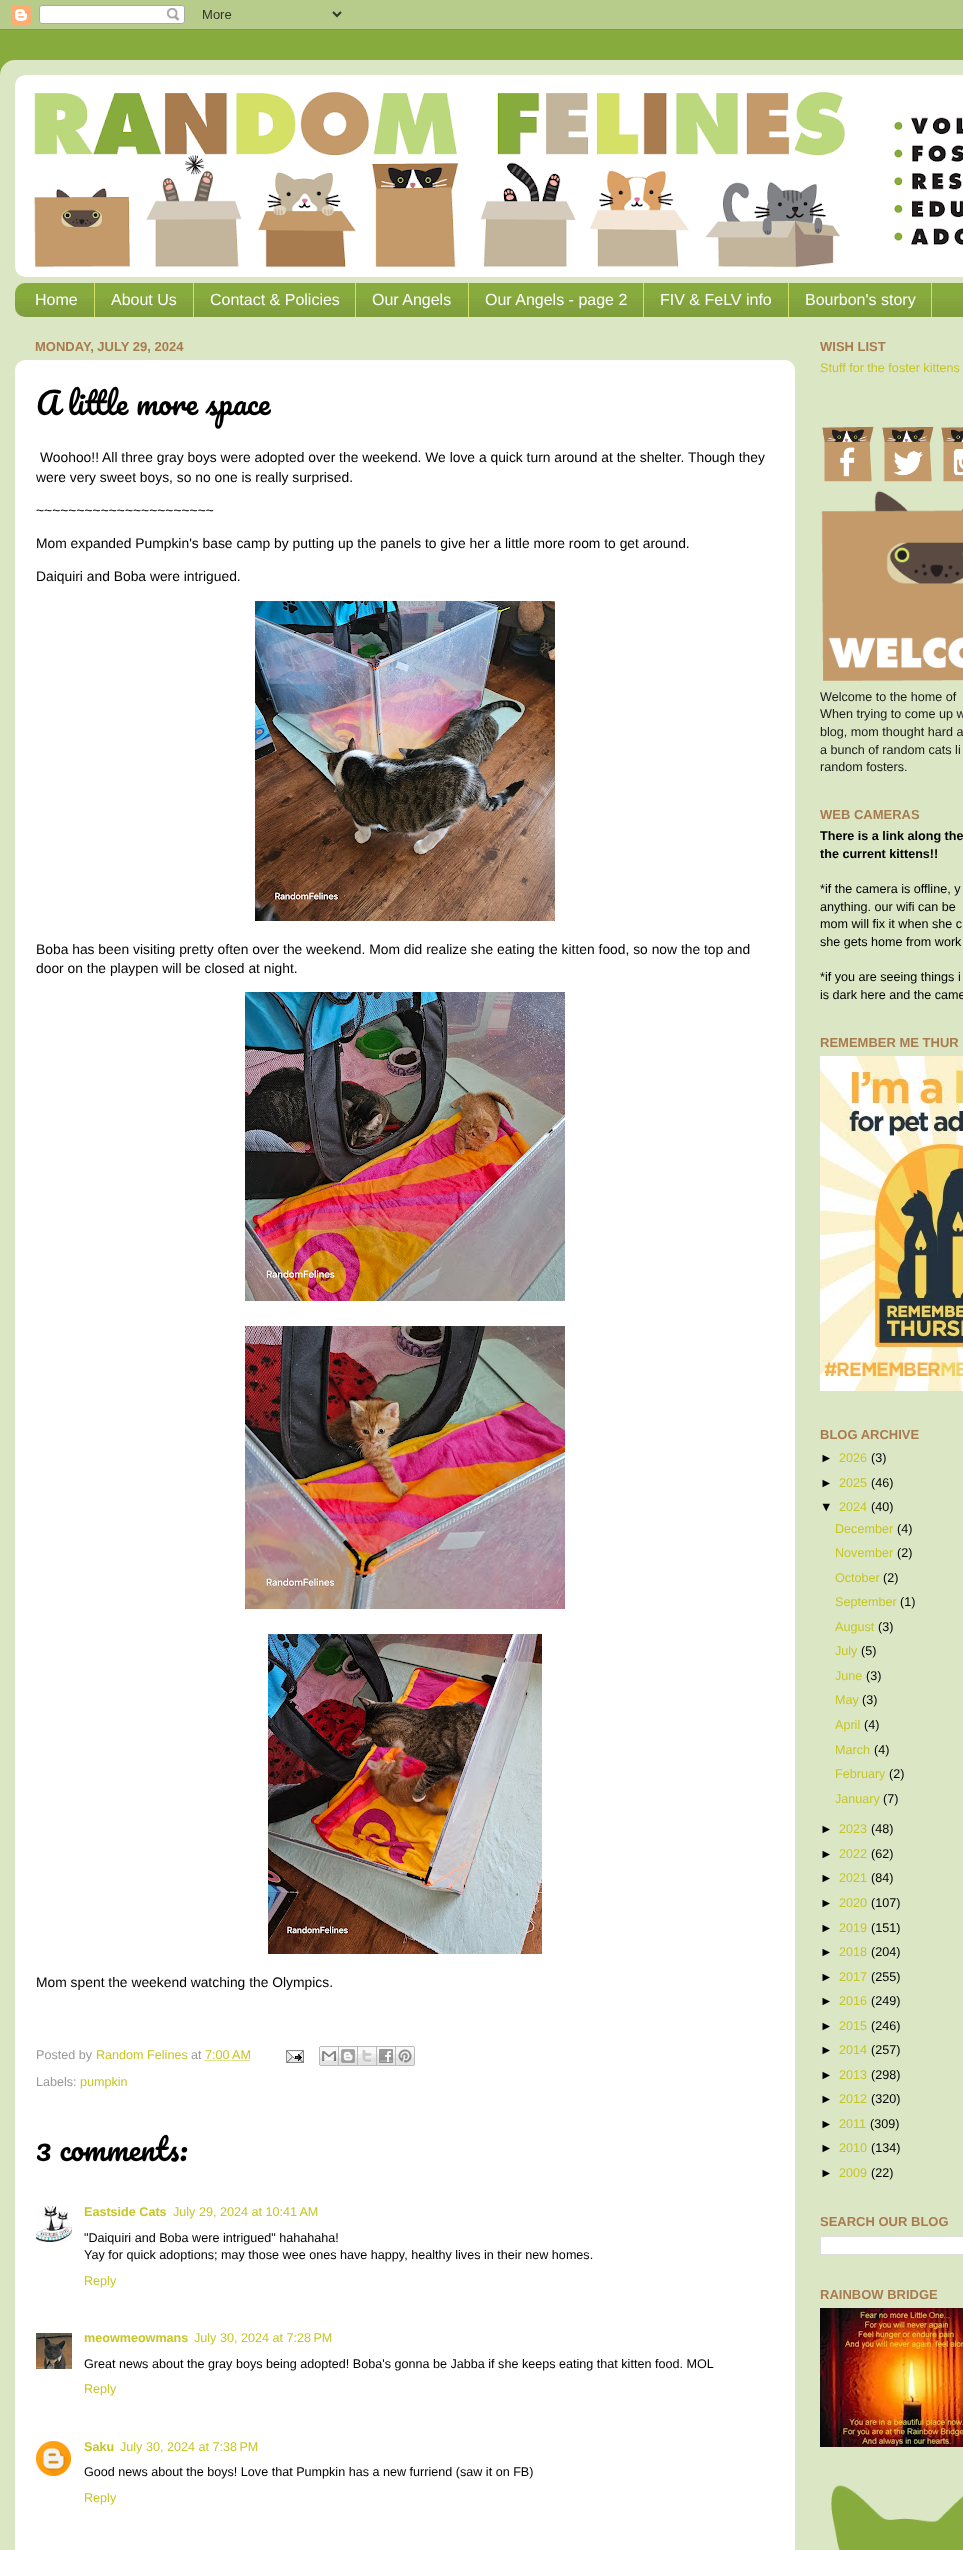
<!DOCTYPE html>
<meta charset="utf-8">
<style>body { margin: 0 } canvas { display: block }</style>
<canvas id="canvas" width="963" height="2550"></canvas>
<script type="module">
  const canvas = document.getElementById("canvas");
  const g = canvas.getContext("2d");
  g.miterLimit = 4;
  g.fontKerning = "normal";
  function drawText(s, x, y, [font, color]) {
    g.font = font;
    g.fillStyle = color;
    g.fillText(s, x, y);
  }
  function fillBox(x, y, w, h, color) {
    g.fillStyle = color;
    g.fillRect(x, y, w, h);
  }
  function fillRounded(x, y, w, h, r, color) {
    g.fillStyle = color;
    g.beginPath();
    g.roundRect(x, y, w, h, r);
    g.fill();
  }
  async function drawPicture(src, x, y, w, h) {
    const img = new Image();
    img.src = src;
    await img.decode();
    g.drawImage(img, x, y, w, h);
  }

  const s1 = ["16px Liberation Sans", "#FFFFFF"];
  const s2 = ["bold 13px Liberation Sans", "#A97C50"];
  const s3 = ["30px Pacifico", "#000000"];
  const s4 = ["13.85px Liberation Sans", "#000000"];
  const s5 = ["12.6px Liberation Sans", "#999999"];
  const s6 = ["12.6px Liberation Sans", "#C6C628"];
  const s7 = ["bold 12.6px Liberation Sans", "#C6C628"];
  const s8 = ["12.6px Liberation Sans", "#000000"];
  const s9 = ["12.6px Liberation Sans", "#1A1A1A"];
  const s10 = ["bold 12.6px Liberation Sans", "#000000"];

  fillBox(0, 0, 963, 2550, "#88AB3E");
  await drawPicture("pic1.png", 0, 0, 963, 30);
  await drawPicture("pic2.png", 0, 60, 963, 2490);
  await drawPicture("pic3.png", 15, 75, 10, 10);
  await drawPicture("pic4.png", 15, 75, 948, 202);
  fillRounded(15, 283, 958, 34, 10, "#88AB3E");
  await drawPicture("pic5.png", 15, 298, 948, 19);
  fillBox(94, 283, 1, 34, "#D4E166");
  drawText("Home", 35, 305, s1);
  fillBox(193, 283, 1, 34, "#D4E166");
  drawText("About Us", 111, 305, s1);
  fillBox(355, 283, 1, 34, "#D4E166");
  drawText("Contact & Policies", 210, 305, s1);
  fillBox(468, 283, 1, 34, "#D4E166");
  drawText("Our Angels", 372, 305, s1);
  fillBox(643, 283, 1, 34, "#D4E166");
  drawText("Our Angels - page 2", 485, 305, s1);
  fillBox(788, 283, 1, 34, "#D4E166");
  drawText("FIV & FeLV info", 660, 305, s1);
  fillBox(931, 283, 1, 34, "#D4E166");
  drawText("Bourbon's story", 805, 305, s1);
  drawText("MONDAY, JULY 29, 2024", 35, 351, s2);
  fillRounded(15, 360, 780, 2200, 10, "#FFFFFF");
  drawText("A little more space", 36, 415, s3);
  drawText("Woohoo!! All three gray boys were adopted over the weekend. We love a quick turn around at the shelter. Though they", 40, 462, s4);
  drawText("were very sweet boys, so no one is really surprised.", 36, 482, s4);
  drawText("~~~~~~~~~~~~~~~~~~~~~~", 36, 515, s4);
  drawText("Mom expanded Pumpkin's base camp by putting up the panels to give her a little more room to get around.", 36, 548, s4);
  drawText("Daiquiri and Boba were intrigued.", 36, 581, s4);
  await drawPicture("pic6.png", 255, 601, 300, 320);
  drawText("Boba has been visiting pretty often over the weekend. Mom did realize she eating the kitten food, so now the top and", 36, 954, s4);
  drawText("door on the playpen will be closed at night.", 36, 973, s4);
  await drawPicture("pic7.png", 245, 992, 320, 309);
  await drawPicture("pic8.png", 245, 1326, 320, 283);
  await drawPicture("pic9.png", 268, 1634, 274, 320);
  drawText("Mom spent the weekend watching the Olympics.", 36, 1987, s4);
  drawText("Posted by", 36, 2059, s5);
  drawText("Random Felines", 96, 2059, s6);
  drawText("at", 191, 2059, s5);
  drawText("7:00 AM", 205, 2059, s6);
  g.beginPath();
  g.moveTo(204.5, 2060.5);
  g.lineTo(250.5, 2060.5);
  g.strokeStyle = "#C6C628";
  g.setLineDash([1, 1]);
  g.stroke();
  await drawPicture("pic10.png", 286, 2050, 18, 13);
  await drawPicture("pic11.png", 319, 2046, 20, 20);
  await drawPicture("pic12.png", 339, 2046, 19, 20);
  await drawPicture("pic13.png", 358, 2046, 19, 20);
  await drawPicture("pic14.png", 377, 2046, 19, 20);
  await drawPicture("pic15.png", 396, 2046, 19, 20);
  drawText("Labels:", 36, 2086, s5);
  drawText("pumpkin", 80, 2086, s6);
  drawText("3 comments:", 36, 2161, s3);
  await drawPicture("pic16.png", 36, 2206, 36, 36);
  drawText("Eastside Cats", 84, 2216, s7);
  drawText("July 29, 2024 at 10:41 AM", 173, 2216, s6);
  drawText("\"Daiquiri and Boba were intrigued\" hahahaha!", 84, 2242, s8);
  drawText("Yay for quick adoptions; may those wee ones have happy, healthy lives in their new homes.", 84, 2259, s8);
  drawText("Reply", 84, 2285, s6);
  await drawPicture("pic17.png", 36, 2333, 36, 36);
  drawText("meowmeowmans", 84, 2342, s7);
  drawText("July 30, 2024 at 7:28 PM", 194, 2342, s6);
  drawText("Great news about the gray boys being adopted! Boba's gonna be Jabba if she keeps eating that kitten food. MOL", 84, 2368, s8);
  drawText("Reply", 84, 2393, s6);
  await drawPicture("pic18.png", 36, 2441, 35, 35);
  drawText("Saku", 84, 2451, s7);
  drawText("July 30, 2024 at 7:38 PM", 120, 2451, s6);
  drawText("Good news about the boys! Love that Pumpkin has a new furriend (saw it on FB)", 84, 2476, s8);
  drawText("Reply", 84, 2502, s6);
  drawText("WISH LIST", 820, 351, s2);
  drawText("Stuff for the foster kittens", 820, 372, s6);
  await drawPicture("pic19.png", 822, 426, 52, 56);
  await drawPicture("pic20.png", 882, 426, 52, 56);
  await drawPicture("pic21.png", 941, 427, 22, 55);
  await drawPicture("pic22.png", 821, 491, 142, 190);
  drawText("Welcome to the home of", 820, 701, s9);
  drawText("When trying to come up w", 820, 718, s9);
  drawText("blog, mom thought hard a", 820, 736, s9);
  drawText("a bunch of random cats li", 820, 754, s9);
  drawText("random fosters.", 820, 771, s9);
  drawText("WEB CAMERAS", 820, 819, s2);
  drawText("There is a link along the", 820, 840, s10);
  drawText("the current kittens!!", 820, 858, s10);
  drawText("*if the camera is offline, y", 820, 893, s8);
  drawText("anything. our wifi can be", 820, 911, s8);
  drawText("mom will fix it when she c", 820, 928, s8);
  drawText("she gets home from work", 820, 946, s8);
  drawText("*if you are seeing things i", 820, 981, s8);
  drawText("is dark here and the came", 820, 999, s8);
  drawText("REMEMBER ME THUR", 820, 1047, s2);
  await drawPicture("pic23.png", 820, 1056, 143, 335);
  drawText("BLOG ARCHIVE", 820, 1439, s2);
  drawText("►", 820, 1462, s8);
  drawText("2026", 839, 1462, s6);
  drawText("(3)", 871, 1462, s8);
  drawText("►", 820, 1487, s8);
  drawText("2025", 839, 1487, s6);
  drawText("(46)", 871, 1487, s8);
  drawText("▼", 820, 1511, s8);
  drawText("2024", 839, 1511, s6);
  drawText("(40)", 871, 1511, s8);
  drawText("December", 835, 1533, s6);
  drawText("(4)", 897, 1533, s8);
  drawText("November", 835, 1557, s6);
  drawText("(2)", 897, 1557, s8);
  drawText("October", 835, 1582, s6);
  drawText("(2)", 883, 1582, s8);
  drawText("September", 835, 1606, s6);
  drawText("(1)", 900, 1606, s8);
  drawText("August", 835, 1631, s6);
  drawText("(3)", 878, 1631, s8);
  drawText("July", 835, 1655, s6);
  drawText("(5)", 861, 1655, s8);
  drawText("June", 835, 1680, s6);
  drawText("(3)", 866, 1680, s8);
  drawText("May", 835, 1704, s6);
  drawText("(3)", 862, 1704, s8);
  drawText("April", 835, 1729, s6);
  drawText("(4)", 864, 1729, s8);
  drawText("March", 835, 1754, s6);
  drawText("(4)", 874, 1754, s8);
  drawText("February", 835, 1778, s6);
  drawText("(2)", 889, 1778, s8);
  drawText("January", 835, 1803, s6);
  drawText("(7)", 883, 1803, s8);
  drawText("►", 820, 1833, s8);
  drawText("2023", 839, 1833, s6);
  drawText("(48)", 871, 1833, s8);
  drawText("►", 820, 1858, s8);
  drawText("2022", 839, 1858, s6);
  drawText("(62)", 871, 1858, s8);
  drawText("►", 820, 1882, s8);
  drawText("2021", 839, 1882, s6);
  drawText("(84)", 871, 1882, s8);
  drawText("►", 820, 1907, s8);
  drawText("2020", 839, 1907, s6);
  drawText("(107)", 871, 1907, s8);
  drawText("►", 820, 1932, s8);
  drawText("2019", 839, 1932, s6);
  drawText("(151)", 871, 1932, s8);
  drawText("►", 820, 1956, s8);
  drawText("2018", 839, 1956, s6);
  drawText("(204)", 871, 1956, s8);
  drawText("►", 820, 1981, s8);
  drawText("2017", 839, 1981, s6);
  drawText("(255)", 871, 1981, s8);
  drawText("►", 820, 2005, s8);
  drawText("2016", 839, 2005, s6);
  drawText("(249)", 871, 2005, s8);
  drawText("►", 820, 2030, s8);
  drawText("2015", 839, 2030, s6);
  drawText("(246)", 871, 2030, s8);
  drawText("►", 820, 2054, s8);
  drawText("2014", 839, 2054, s6);
  drawText("(257)", 871, 2054, s8);
  drawText("►", 820, 2079, s8);
  drawText("2013", 839, 2079, s6);
  drawText("(298)", 871, 2079, s8);
  drawText("►", 820, 2103, s8);
  drawText("2012", 839, 2103, s6);
  drawText("(320)", 871, 2103, s8);
  drawText("►", 820, 2128, s8);
  drawText("2011", 839, 2128, s6);
  drawText("(309)", 870, 2128, s8);
  drawText("►", 820, 2152, s8);
  drawText("2010", 839, 2152, s6);
  drawText("(134)", 871, 2152, s8);
  drawText("►", 820, 2177, s8);
  drawText("2009", 839, 2177, s6);
  drawText("(22)", 871, 2177, s8);
  drawText("SEARCH OUR BLOG", 820, 2226, s2);
  g.fillStyle = "#FFFFFF";
  g.beginPath();
  g.rect(820.5, 2236.5, 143, 18);
  g.fill();
  g.strokeStyle = "#DDDDDD";
  g.setLineDash([]);
  g.stroke();
  drawText("RAINBOW BRIDGE", 820, 2299, s2);
  await drawPicture("pic24.png", 820, 2308, 143, 139);
  await drawPicture("pic25.png", 831, 2485, 132, 65);
</script>
